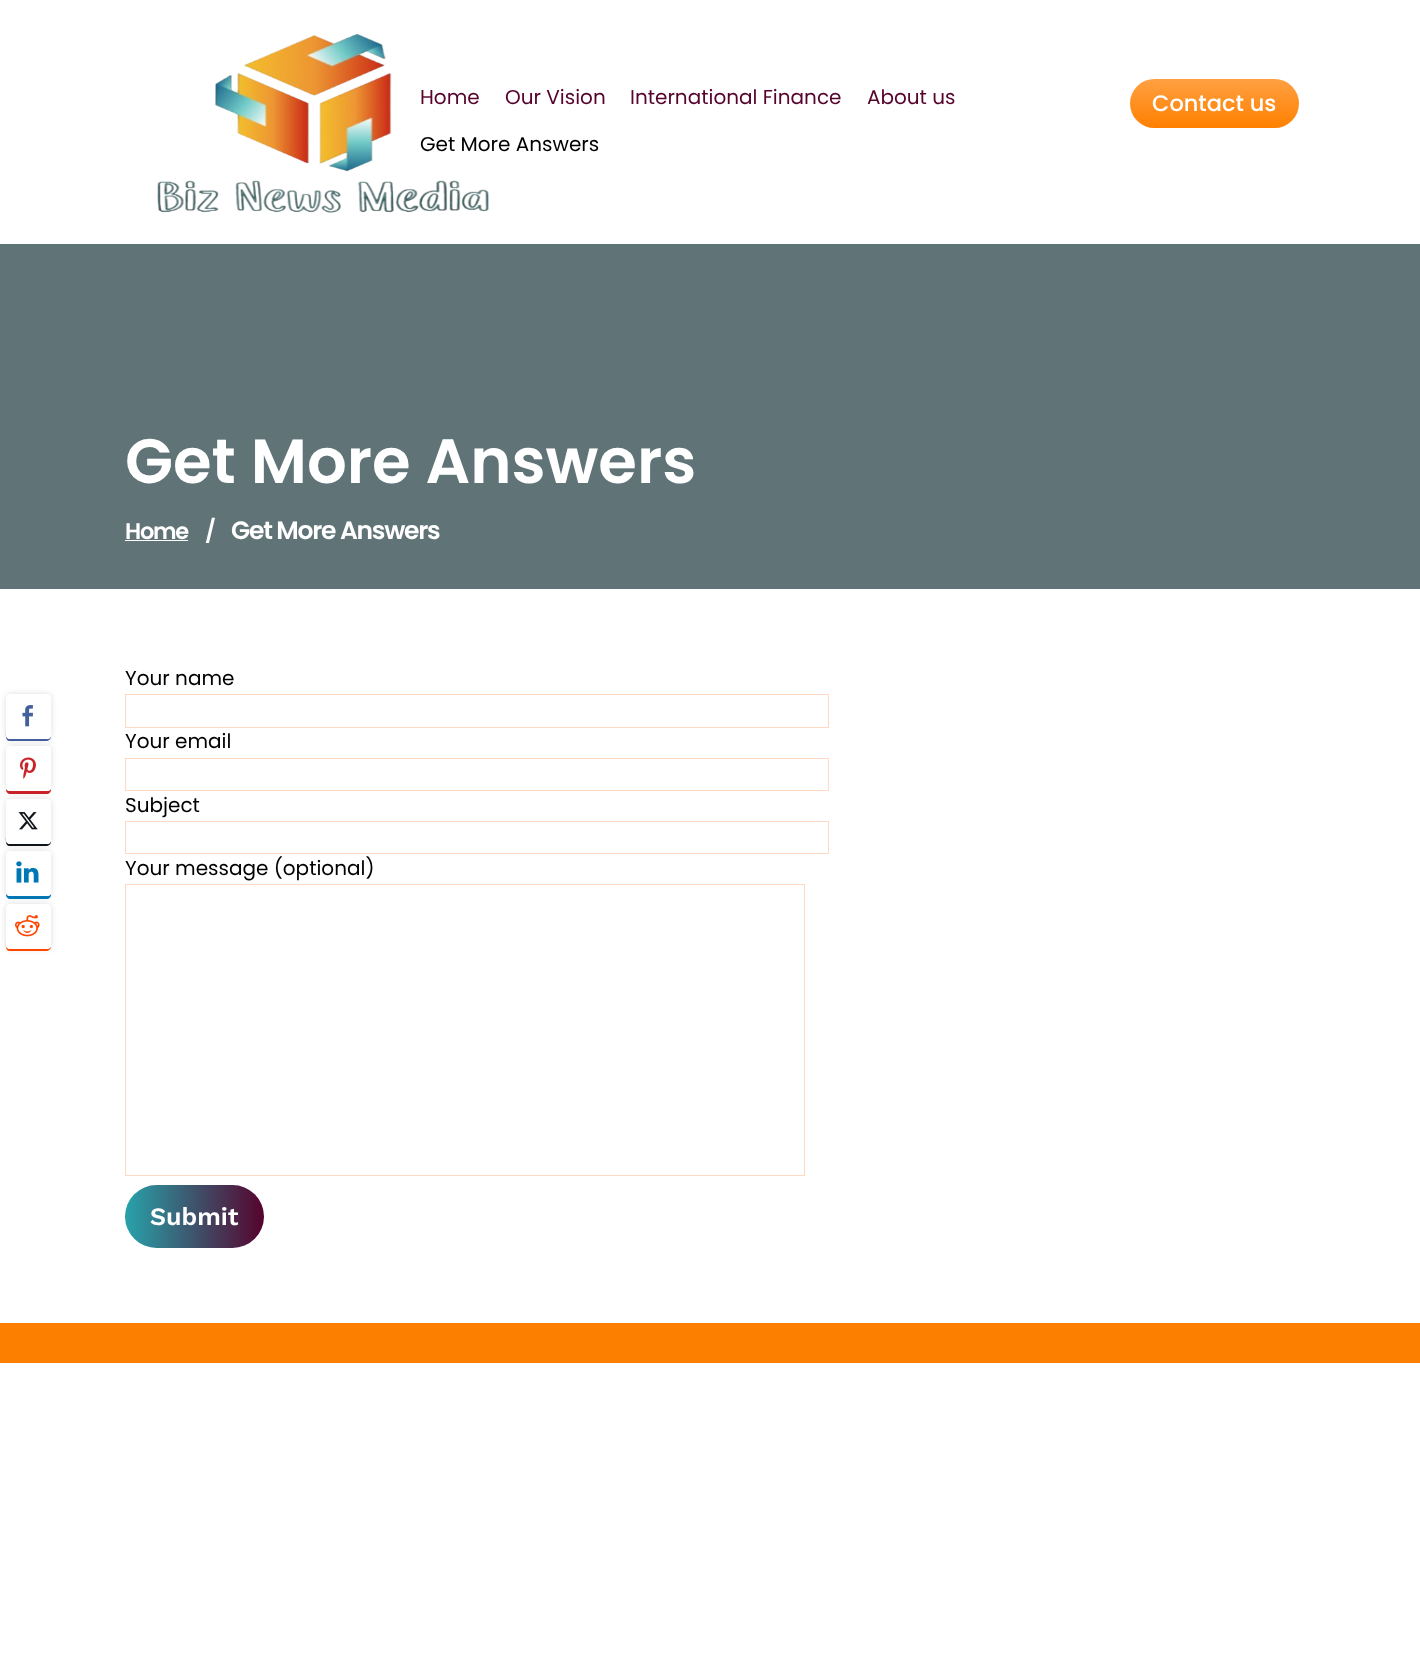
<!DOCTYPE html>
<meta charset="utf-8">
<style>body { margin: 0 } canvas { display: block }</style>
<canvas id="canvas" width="1420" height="1679"></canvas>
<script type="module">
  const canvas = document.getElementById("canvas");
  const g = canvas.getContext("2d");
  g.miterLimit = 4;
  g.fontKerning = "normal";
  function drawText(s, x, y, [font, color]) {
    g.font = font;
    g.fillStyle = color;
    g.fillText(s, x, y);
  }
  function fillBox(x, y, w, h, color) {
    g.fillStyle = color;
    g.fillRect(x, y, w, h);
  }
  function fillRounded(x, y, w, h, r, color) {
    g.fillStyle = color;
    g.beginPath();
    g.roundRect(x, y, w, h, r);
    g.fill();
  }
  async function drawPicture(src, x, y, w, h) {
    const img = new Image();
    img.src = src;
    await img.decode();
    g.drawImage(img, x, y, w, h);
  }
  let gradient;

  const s1 = ["20px Poppins", "#56032D"];
  const s2 = ["20px Poppins", "#000000"];
  const s3 = ["500 22.5px Poppins", "#FFFFFF"];
  const s4 = ["600 62.5px Poppins", "#FFFFFF"];
  const s5 = ["600 22.5px Poppins", "#FFFFFF"];
  const s6 = ["600 25px Poppins", "#FFFFFF"];
  const s7 = ["600 25px Work Sans", "#FFFFFF"];

  fillBox(0, 0, 1420, 1679, "#FFFFFF");
  g.fillStyle = "rgba(0, 0, 0, 0.13)";
  g.filter = "blur(3px)";
  g.beginPath();
  g.roundRect(6, 694, 45, 45, 4);
  g.fill();
  g.filter = "none";
  g.fillStyle = "#43609C";
  g.beginPath();
  g.moveTo(6, 699);
  g.lineTo(6, 731);
  g.bezierCurveTo(6, 734, 5, 740, 9, 741);
  g.lineTo(41, 741);
  g.bezierCurveTo(45, 741, 51, 742, 51, 736);
  g.bezierCurveTo(50, 738, 49, 739, 48, 739);
  g.lineTo(10, 739);
  g.bezierCurveTo(8, 739, 6, 737, 6, 735);
  g.closePath();
  g.fill();
  fillRounded(6, 694, 45, 45, 4, "#FFFFFF");
  await drawPicture("pic1.png", 22, 705, 11, 22);
  g.fillStyle = "rgba(0, 0, 0, 0.13)";
  g.filter = "blur(3px)";
  g.beginPath();
  g.roundRect(6, 746, 45, 45, 4);
  g.fill();
  g.filter = "none";
  g.fillStyle = "#C92228";
  g.beginPath();
  g.moveTo(6, 752);
  g.lineTo(6, 790);
  g.bezierCurveTo(6, 792, 8, 794, 10, 794);
  g.lineTo(47, 794);
  g.bezierCurveTo(49, 794, 51, 792, 51, 790);
  g.lineTo(51, 789);
  g.bezierCurveTo(50, 790, 49, 791, 48, 791);
  g.lineTo(10, 791);
  g.bezierCurveTo(8, 791, 6, 790, 6, 788);
  g.closePath();
  g.fill();
  fillRounded(6, 746, 45, 45, 4, "#FFFFFF");
  await drawPicture("pic2.png", 20, 757, 16, 22);
  g.fillStyle = "rgba(0, 0, 0, 0.13)";
  g.filter = "blur(3px)";
  g.beginPath();
  g.roundRect(6, 799, 45, 45, 4);
  g.fill();
  g.filter = "none";
  g.fillStyle = "#0F1419";
  g.beginPath();
  g.moveTo(6, 804);
  g.lineTo(6, 836);
  g.bezierCurveTo(6, 839, 5, 845, 9, 846);
  g.lineTo(41, 846);
  g.bezierCurveTo(45, 846, 51, 847, 51, 841);
  g.bezierCurveTo(50, 843, 49, 844, 48, 844);
  g.lineTo(10, 844);
  g.bezierCurveTo(8, 844, 6, 842, 6, 840);
  g.closePath();
  g.fill();
  fillRounded(6, 799, 45, 45, 4, "#FFFFFF");
  await drawPicture("pic3.png", 18, 812, 20, 18);
  g.fillStyle = "rgba(0, 0, 0, 0.13)";
  g.filter = "blur(3px)";
  g.beginPath();
  g.roundRect(6, 851, 45, 45, 4);
  g.fill();
  g.filter = "none";
  g.fillStyle = "#0077B5";
  g.beginPath();
  g.moveTo(6, 857);
  g.lineTo(6, 895);
  g.bezierCurveTo(6, 897, 8, 899, 10, 899);
  g.lineTo(47, 899);
  g.bezierCurveTo(49, 899, 51, 897, 51, 895);
  g.lineTo(51, 894);
  g.bezierCurveTo(50, 895, 49, 896, 48, 896);
  g.lineTo(10, 896);
  g.bezierCurveTo(8, 896, 6, 895, 6, 892);
  g.closePath();
  g.fill();
  fillRounded(6, 851, 45, 45, 4, "#FFFFFF");
  await drawPicture("pic4.png", 16, 861, 23, 22);
  g.fillStyle = "rgba(0, 0, 0, 0.13)";
  g.filter = "blur(3px)";
  g.beginPath();
  g.roundRect(6, 904, 45, 45, 4);
  g.fill();
  g.filter = "none";
  g.fillStyle = "#FF4500";
  g.beginPath();
  g.moveTo(6, 909);
  g.lineTo(6, 941);
  g.bezierCurveTo(6, 944, 5, 950, 9, 951);
  g.lineTo(41, 951);
  g.bezierCurveTo(45, 951, 51, 952, 51, 946);
  g.bezierCurveTo(50, 948, 49, 949, 48, 949);
  g.lineTo(10, 949);
  g.bezierCurveTo(8, 949, 6, 947, 6, 945);
  g.closePath();
  g.fill();
  fillRounded(6, 904, 45, 45, 4, "#FFFFFF");
  await drawPicture("pic5.png", 15, 915, 25, 22);
  await drawPicture("pic6.png", 157, 33, 332, 180);
  drawText("Home", 420, 104, s1);
  drawText("Our Vision", 505, 104, s1);
  drawText("International Finance", 630, 104, s1);
  drawText("About us", 867, 104, s1);
  drawText("Get More Answers", 420, 151, s2);
  gradient = g.createLinearGradient(1214, 128, 1214, 79);
  gradient.addColorStop(0, "#FF8000");
  gradient.addColorStop(1, "#FFA041");
  g.fillStyle = gradient;
  g.beginPath();
  g.roundRect(1130, 79, 169, 49, 24.5);
  g.fill();
  drawText("Contact us", 1152, 111, s3);
  fillBox(0, 244, 1420, 345, "#607377");
  drawText("Get More Answers", 125, 483, s4);
  g.letterSpacing = "-1.25px";
  drawText("Home", 125, 539, s5);
  fillBox(125, 540, 63, 1, "#FFFFFF");
  drawText("/", 205, 539, s5);
  drawText("Get More Answers", 231, 539, s6);
  g.letterSpacing = "0px";
  drawText("Your name", 125, 685, s2);
  g.strokeStyle = "#FFD9C4";
  g.strokeRect(125.5, 694.5, 703, 33);
  drawText("Your email", 125, 748, s2);
  g.strokeRect(125.5, 758.5, 703, 32);
  drawText("Subject", 125, 812, s2);
  g.strokeRect(125.5, 821.5, 703, 32);
  drawText("Your message (optional)", 125, 875, s2);
  g.strokeRect(125.5, 884.5, 679, 291);
  gradient = g.createLinearGradient(-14, 1216, 264, 1216);
  gradient.addColorStop(0, "#56032D");
  gradient.addColorStop(0.51, "#28A0A8");
  gradient.addColorStop(1, "#56032D");
  g.fillStyle = gradient;
  g.beginPath();
  g.roundRect(125, 1185, 139, 63, 31.5);
  g.fill();
  drawText("Submit", 150, 1225, s7);
  fillBox(0, 1323, 1420, 40, "#FD7F00");
</script>
